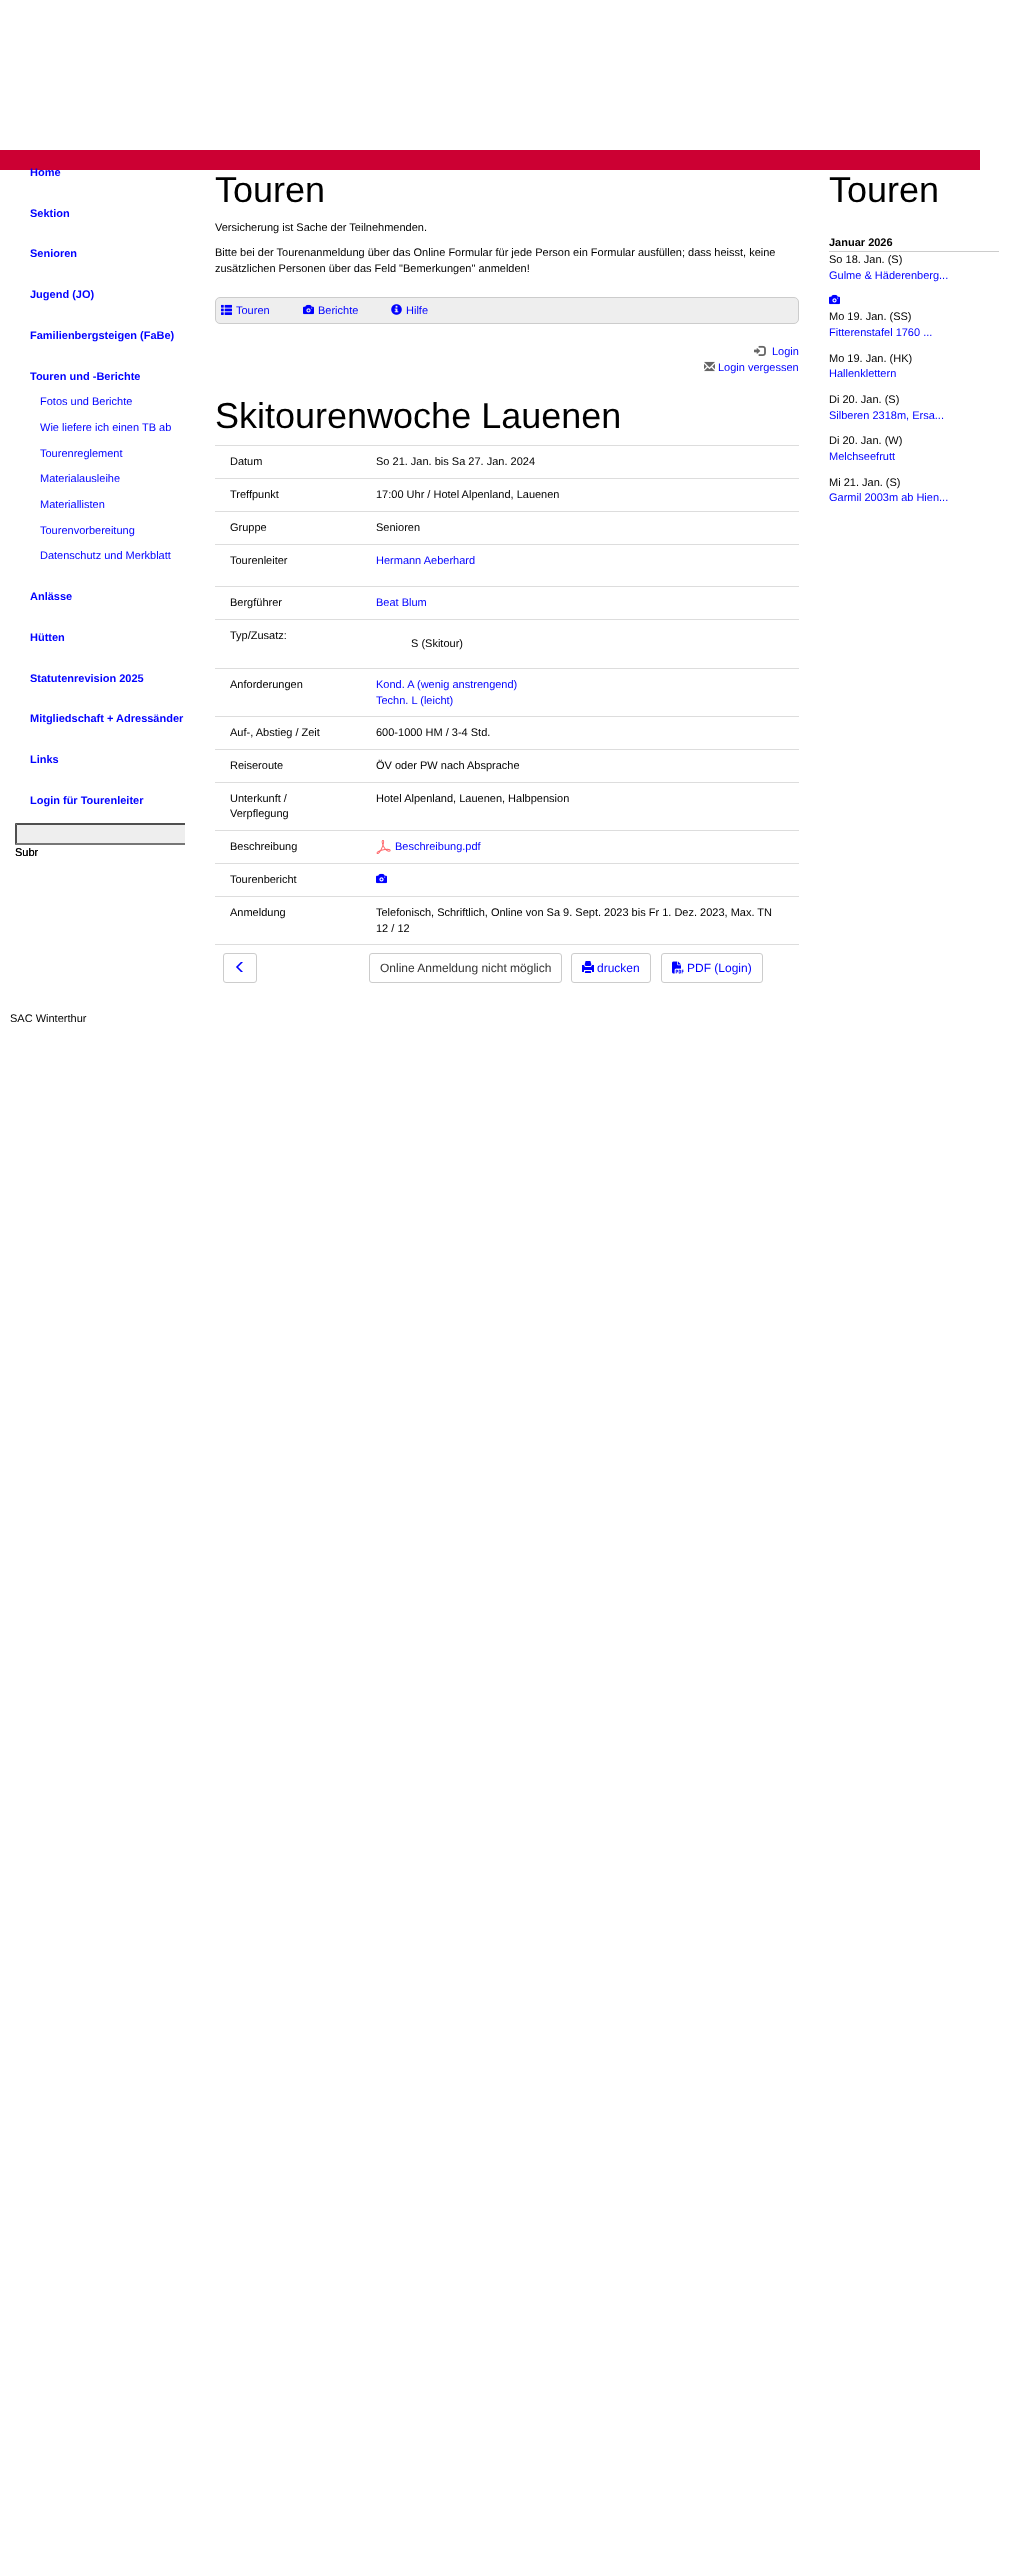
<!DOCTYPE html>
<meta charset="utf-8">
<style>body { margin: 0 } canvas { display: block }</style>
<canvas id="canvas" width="1014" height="2549"></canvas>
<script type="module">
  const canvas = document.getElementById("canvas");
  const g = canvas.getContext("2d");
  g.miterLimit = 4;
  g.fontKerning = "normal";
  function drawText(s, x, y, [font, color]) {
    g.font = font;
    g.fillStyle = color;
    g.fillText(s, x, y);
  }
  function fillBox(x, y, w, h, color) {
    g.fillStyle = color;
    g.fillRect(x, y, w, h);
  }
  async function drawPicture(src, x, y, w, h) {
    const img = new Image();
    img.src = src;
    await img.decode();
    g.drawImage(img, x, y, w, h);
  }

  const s1 = ["bold 11px Liberation Sans", "#0000FF"];
  const s2 = ["11px Liberation Sans", "#0000FF"];
  const s3 = ["11px Liberation Sans", "#000000"];
  const s4 = ["36px Liberation Sans", "#000000"];
  const s5 = ["12px Liberation Sans", "#333333"];
  const s6 = ["12px Liberation Sans", "#0000FF"];
  const s7 = ["bold 11px Liberation Sans", "#000000"];

  fillBox(0, 0, 1014, 2549, "#FFFFFF");
  fillBox(0, 150, 980, 20, "#CC0033");
  drawText("Home", 30, 176, s1);
  drawText("Sektion", 30, 217, s1);
  drawText("Senioren", 30, 257, s1);
  drawText("Jugend (JO)", 30, 298, s1);
  drawText("Familienbergsteigen (FaBe)", 30, 339, s1);
  drawText("Touren und -Berichte", 30, 380, s1);
  drawText("Fotos und Berichte", 40, 405, s2);
  drawText("Wie liefere ich einen TB ab", 40, 431, s2);
  drawText("Tourenreglement", 40, 457, s2);
  drawText("Materialausleihe", 40, 482, s2);
  drawText("Materiallisten", 40, 508, s2);
  drawText("Tourenvorbereitung", 40, 534, s2);
  drawText("Datenschutz und Merkblatt", 40, 559, s2);
  drawText("Anlässe", 30, 600, s1);
  drawText("Hütten", 30, 641, s1);
  drawText("Statutenrevision 2025", 30, 682, s1);
  drawText("Mitgliedschaft + Adressänder", 30, 722, s1);
  drawText("Links", 30, 763, s1);
  drawText("Login für Tourenleiter", 30, 804, s1);
  fillBox(15, 823, 170, 22, "#EEEEEE");
  g.save();
  g.beginPath();
  g.rect(15, 150, 170, 724);
  g.clip();
  g.fillStyle = "#4F4F4F";
  g.beginPath();
  g.moveTo(15, 823);
  g.lineTo(200, 823);
  g.lineTo(198, 825);
  g.lineTo(17, 825);
  g.closePath();
  g.fill();
  g.fillStyle = "#767676";
  g.beginPath();
  g.moveTo(200, 845);
  g.lineTo(15, 845);
  g.lineTo(17, 843);
  g.lineTo(198, 843);
  g.closePath();
  g.fill();
  g.restore();
  g.fillStyle = "#4F4F4F";
  g.beginPath();
  g.moveTo(15, 845);
  g.lineTo(15, 823);
  g.lineTo(17, 825);
  g.lineTo(17, 843);
  g.closePath();
  g.fill();
  await drawPicture("pic1.png", 15, 848, 23, 8);
  g.save();
  g.beginPath();
  g.rect(15, 845, 23, 14);
  g.clip();
  drawText("Subm", 15, 856, s3);
  g.restore();
  drawText("Touren", 215, 202, s4);
  drawText("Versicherung ist Sache der Teilnehmenden.", 215, 231, s3);
  drawText("Bitte bei der Tourenanmeldung über das Online Formular für jede Person ein Formular ausfüllen; dass heisst, keine", 215, 256, s3);
  drawText("zusätzlichen Personen über das Feld \"Bemerkungen\" anmelden!", 215, 272, s3);
  g.fillStyle = "#EEEEEE";
  g.beginPath();
  g.roundRect(215.5, 297.5, 583, 26, 4.5);
  g.fill();
  g.strokeStyle = "#CCCCCC";
  g.stroke();
  await drawPicture("pic2.png", 221, 304, 11, 11);
  drawText("Touren", 236, 314, s2);
  await drawPicture("pic3.png", 303, 304, 11, 11);
  drawText("Berichte", 318, 314, s2);
  await drawPicture("pic4.png", 391, 304, 11, 11);
  drawText("Hilfe", 406, 314, s2);
  await drawPicture("pic5.png", 754, 345, 12, 11);
  drawText("Login", 772, 355, s2);
  await drawPicture("pic6.png", 704, 361, 11, 11);
  drawText("Login vergessen", 718, 371, s2);
  drawText("Skitourenwoche Lauenen", 215, 428, s4);
  drawText("Datum", 230, 465, s3);
  fillBox(215, 445, 584, 1, "#DDDDDD");
  drawText("So 21. Jan. bis Sa 27. Jan. 2024", 376, 465, s3);
  drawText("Treffpunkt", 230, 498, s3);
  fillBox(215, 478, 584, 1, "#DDDDDD");
  drawText("17:00 Uhr / Hotel Alpenland, Lauenen", 376, 498, s3);
  drawText("Gruppe", 230, 531, s3);
  fillBox(215, 511, 584, 1, "#DDDDDD");
  drawText("Senioren", 376, 531, s3);
  drawText("Tourenleiter", 230, 564, s3);
  fillBox(215, 544, 584, 1, "#DDDDDD");
  drawText("Hermann Aeberhard", 376, 564, s2);
  drawText("Bergführer", 230, 606, s3);
  fillBox(215, 586, 584, 1, "#DDDDDD");
  drawText("Beat Blum", 376, 606, s2);
  fillBox(215, 619, 584, 1, "#DDDDDD");
  drawText("Typ/Zusatz:", 230, 639, s3);
  drawText("S (Skitour)", 411, 647, s3);
  fillBox(215, 668, 584, 1, "#DDDDDD");
  drawText("Anforderungen", 230, 688, s3);
  drawText("Kond. A (wenig anstrengend)", 376, 688, s2);
  drawText("Techn. L (leicht)", 376, 704, s2);
  drawText("Auf-, Abstieg / Zeit", 230, 736, s3);
  fillBox(215, 716, 584, 1, "#DDDDDD");
  drawText("600-1000 HM / 3-4 Std.", 376, 736, s3);
  drawText("Reiseroute", 230, 769, s3);
  fillBox(215, 749, 584, 1, "#DDDDDD");
  drawText("ÖV oder PW nach", 376, 769, s3);
  drawText("Absprache", 467, 769, s3);
  drawText("Unterkunft /", 230, 802, s3);
  drawText("Verpflegung", 230, 817, s3);
  fillBox(215, 782, 584, 1, "#DDDDDD");
  drawText("Hotel Alpenland, Lauenen, Halbpension", 376, 802, s3);
  drawText("Beschreibung", 230, 850, s3);
  fillBox(215, 830, 584, 1, "#DDDDDD");
  await drawPicture("pic7.png", 376, 840, 15, 14);
  drawText("Beschreibung.pdf", 395, 850, s2);
  fillBox(215, 863, 584, 1, "#DDDDDD");
  await drawPicture("pic8.png", 376, 873, 11, 11);
  drawText("Tourenbericht", 230, 883, s3);
  drawText("Anmeldung", 230, 916, s3);
  fillBox(215, 896, 584, 1, "#DDDDDD");
  drawText("Telefonisch, Schriftlich, Online von Sa 9. Sept. 2023 bis Fr 1. Dez. 2023, Max. TN", 376, 916, s3);
  drawText("12 / 12", 376, 932, s3);
  g.beginPath();
  g.roundRect(223.5, 953.5, 33, 29, 2.5);
  g.stroke();
  await drawPicture("pic9.png", 236, 962, 7, 10);
  fillBox(215, 944, 584, 1, "#DDDDDD");
  g.beginPath();
  g.roundRect(369.5, 953.5, 192, 29, 2.5);
  g.stroke();
  drawText("Online Anmeldung nicht möglich", 380, 972, s5);
  g.beginPath();
  g.roundRect(571.5, 953.5, 79, 29, 2.5);
  g.stroke();
  await drawPicture("pic10.png", 582, 961, 12, 12);
  drawText("drucken", 597, 972, s6);
  g.beginPath();
  g.roundRect(661.5, 953.5, 101, 29, 2.5);
  g.stroke();
  await drawPicture("pic11.png", 672, 961, 12, 13);
  drawText("PDF (Login)", 687, 972, s6);
  drawText("Touren", 829, 202, s4);
  fillBox(829, 251, 170, 1, "#CCCCCC");
  drawText("Januar 2026", 829, 246, s7);
  drawText("So 18. Jan. (S)", 829, 263, s3);
  drawText("Gulme & Häderenberg...", 829, 279, s2);
  await drawPicture("pic8.png", 829, 294, 11, 11);
  drawText("Mo 19. Jan. (SS)", 829, 320, s3);
  drawText("Fitterenstafel 1760 ...", 829, 336, s2);
  drawText("Mo 19. Jan. (HK)", 829, 362, s3);
  drawText("Hallenklettern", 829, 377, s2);
  drawText("Di 20. Jan. (S)", 829, 403, s3);
  drawText("Silberen 2318m, Ersa...", 829, 419, s2);
  drawText("Di 20. Jan. (W)", 829, 444, s3);
  drawText("Melchseefrutt", 829, 460, s2);
  drawText("Mi 21. Jan. (S)", 829, 486, s3);
  drawText("Garmil 2003m ab Hien...", 829, 501, s2);
  drawText("SAC Winterthur", 10, 1022, s3);
</script>
